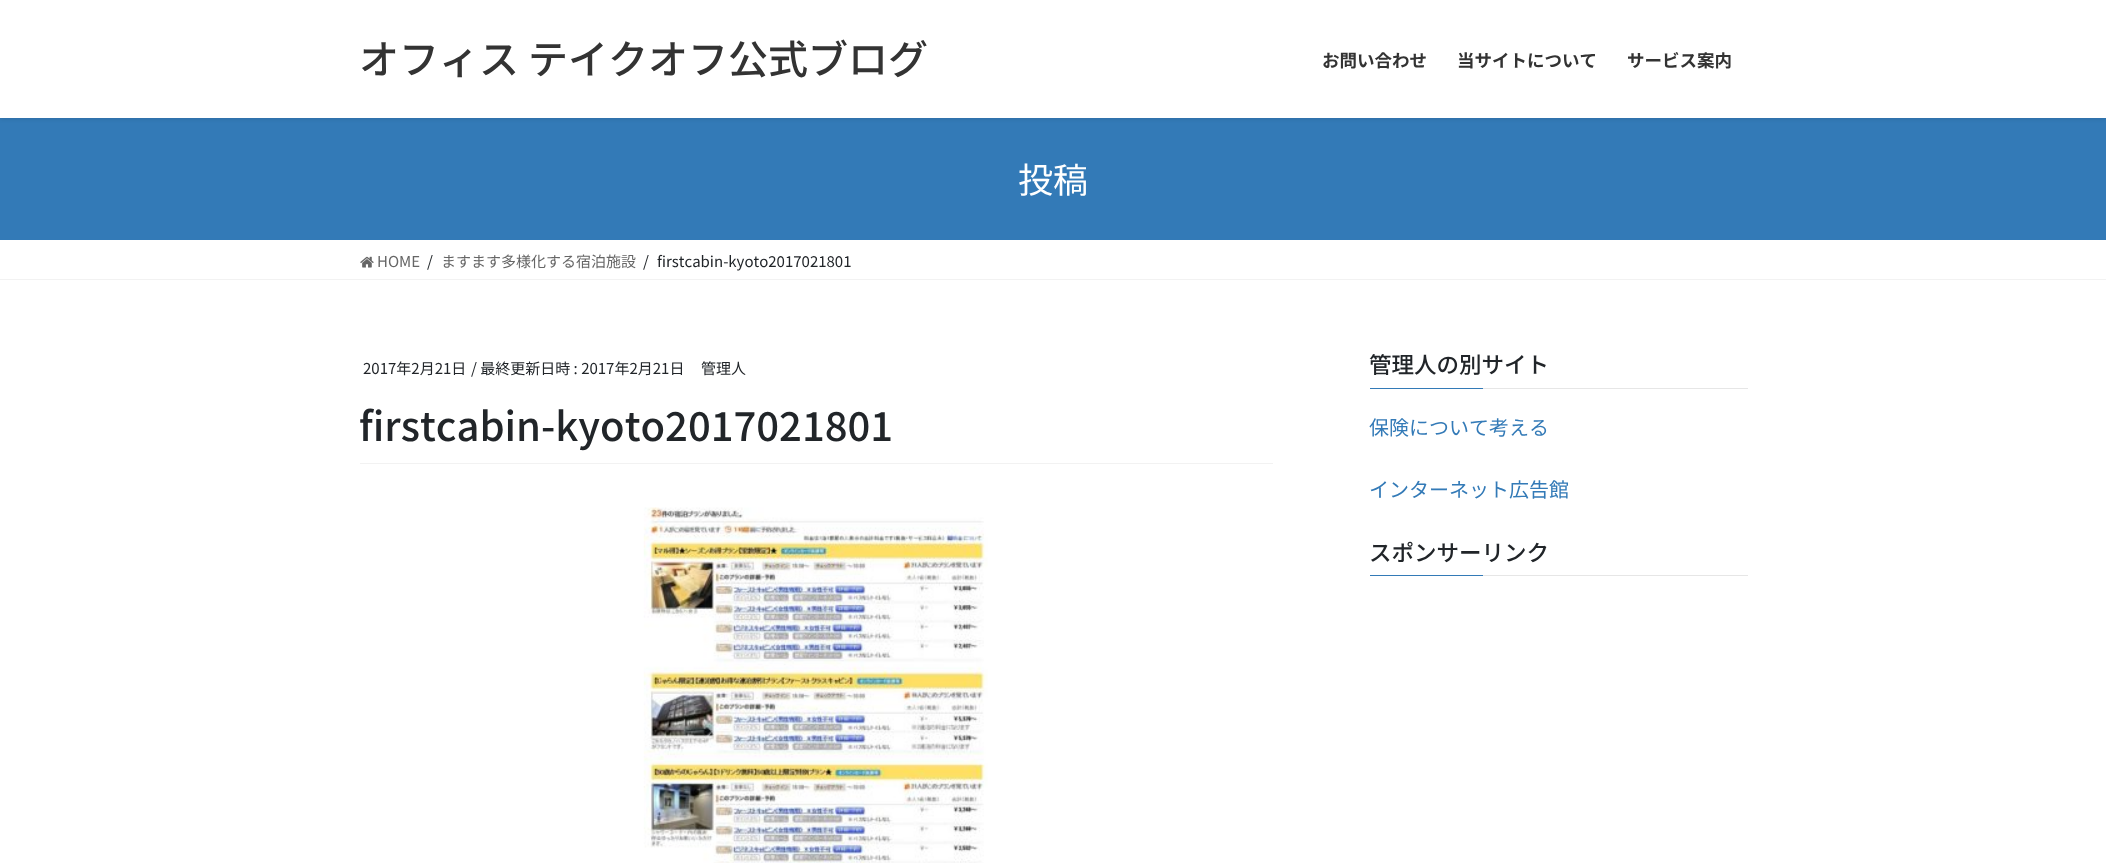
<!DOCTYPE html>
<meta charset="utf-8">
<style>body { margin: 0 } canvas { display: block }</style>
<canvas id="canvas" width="2106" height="863"></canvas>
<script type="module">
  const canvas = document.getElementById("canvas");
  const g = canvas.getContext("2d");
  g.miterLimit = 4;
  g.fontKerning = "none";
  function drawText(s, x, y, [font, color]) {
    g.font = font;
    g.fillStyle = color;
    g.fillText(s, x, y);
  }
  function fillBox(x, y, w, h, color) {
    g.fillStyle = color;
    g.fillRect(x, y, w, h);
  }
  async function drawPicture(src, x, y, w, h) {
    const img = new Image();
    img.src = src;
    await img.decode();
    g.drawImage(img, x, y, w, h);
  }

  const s1 = ["500 40px Noto Sans JP", "#333333"];
  const s2 = ["bold 17.5px Noto Sans JP", "#333333"];
  const s3 = ["35px Noto Sans JP", "#FFFFFF"];
  const s4 = ["15px Noto Sans JP", "#666666"];
  const s5 = ["15px Noto Sans JP", "#212529"];
  const s6 = ["500 40px Noto Sans JP", "#212529"];
  const s7 = ["500 22.5px Noto Sans JP", "#212529"];
  const s8 = ["20px Noto Sans JP", "#337AB7"];

  fillBox(0, 0, 2106, 863, "#FFFFFF");
  fillBox(0, 118, 2106, 122, "#337AB7");
  g.fillStyle = "rgba(0, 0, 0, 0.1)";
  g.filter = "blur(2px)";
  g.beginPath();
  g.rect(0, 1, 2106, 118);
  g.fill();
  g.filter = "none";
  fillBox(0, 0, 2106, 118, "#FFFFFF");
  drawText("オフィス テイクオフ公式ブログ", 359, 74, s1);
  drawText("お問い合わせ", 1322, 67, s2);
  drawText("当サイトについて", 1457, 67, s2);
  drawText("サービス案内", 1627, 67, s2);
  drawText("投稿", 1018, 193, s3);
  fillBox(0, 279, 2106, 1, "#F2F2F2");
  await drawPicture("pic1.png", 360, 256, 14, 12);
  drawText("HOME", 377, 267, s4);
  drawText("/", 427, 267, s5);
  drawText("ますます多様化する宿泊施設", 441, 267, s4);
  drawText("/", 643, 267, s5);
  drawText("firstcabin-kyoto2017021801", 657, 267, s5);
  fillBox(360, 463, 913, 1, "#F2F2F2");
  drawText("2017年2月21日", 363, 374, s5);
  drawText("/ 最終更新日時 : 2017年2月21日", 471, 374, s5);
  drawText("管理人", 701, 374, s5);
  drawText("firstcabin-kyoto2017021801", 359, 441, s6);
  await drawPicture("pic2.png", 643, 507, 345, 356);
  fillBox(1483, 388, 265, 1, "#E6E6E6");
  drawText("管理人の別サイト", 1369, 373, s7);
  fillBox(1370, 388, 113, 1, "#337AB7");
  drawText("保険について考える", 1369, 435, s8);
  drawText("インターネット広告館", 1369, 497, s8);
  fillBox(1483, 575, 265, 1, "#E6E6E6");
  drawText("スポンサーリンク", 1369, 561, s7);
  fillBox(1370, 575, 113, 1, "#337AB7");
</script>
